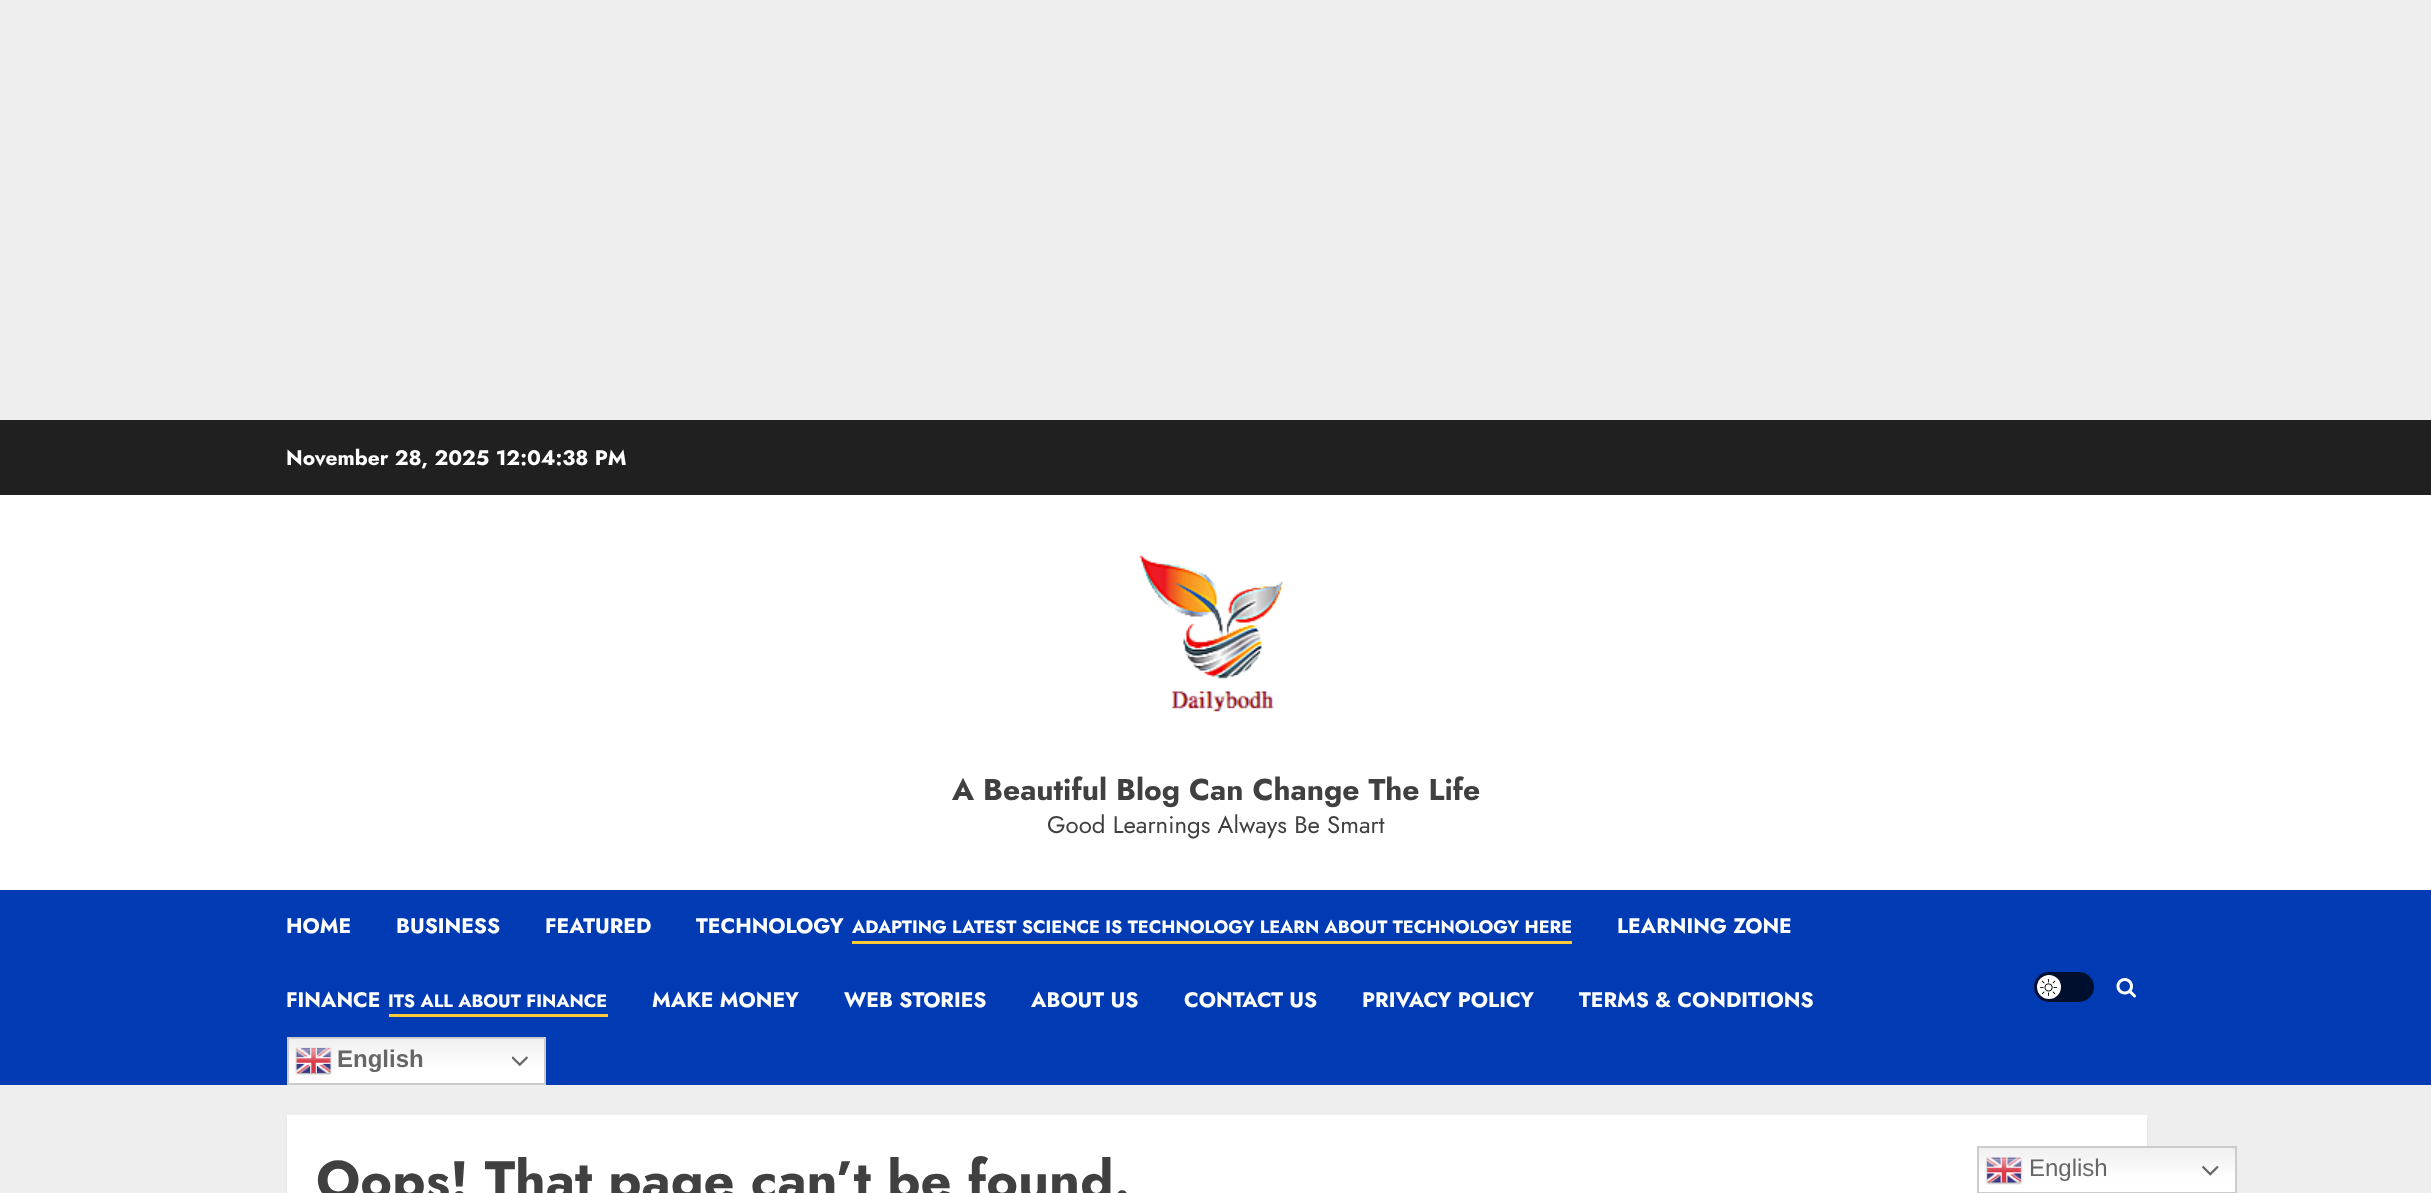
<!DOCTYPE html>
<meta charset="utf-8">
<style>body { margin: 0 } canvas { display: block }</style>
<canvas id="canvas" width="2431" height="1193"></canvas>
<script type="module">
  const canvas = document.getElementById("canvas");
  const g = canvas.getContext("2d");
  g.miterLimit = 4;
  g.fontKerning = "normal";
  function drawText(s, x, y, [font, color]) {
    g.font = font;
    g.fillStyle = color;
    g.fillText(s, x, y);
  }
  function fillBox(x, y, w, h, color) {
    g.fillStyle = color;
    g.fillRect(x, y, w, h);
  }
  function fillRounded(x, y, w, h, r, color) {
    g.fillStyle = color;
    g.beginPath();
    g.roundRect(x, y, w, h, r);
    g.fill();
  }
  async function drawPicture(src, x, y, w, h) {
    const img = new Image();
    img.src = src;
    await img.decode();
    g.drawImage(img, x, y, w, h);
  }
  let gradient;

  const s1 = ["bold 21px Jost", "#FFFFFF"];
  const s2 = ["bold 30px Jost", "#404040"];
  const s3 = ["24px Jost", "#404040"];
  const s4 = ["bold 18px Jost", "#FFFFFF"];
  const s5 = ["bold 24px Liberation Sans", "#666666"];
  const s6 = ["bold 54px Jost", "#404040"];
  const s7 = ["24px Liberation Sans", "#666666"];

  fillBox(0, 0, 2431, 1193, "#EEEEEE");
  fillBox(0, 420, 2431, 75, "#202020");
  drawText("November 28, 2025 12:04:38 PM", 286, 465, s1);
  fillBox(0, 495, 2431, 395, "#FFFFFF");
  await drawPicture("pic1.png", 1139, 554, 144, 158);
  drawText("A Beautiful Blog Can Change The Life", 952, 800, s2);
  drawText("Good Learnings Always Be Smart", 1047, 833, s3);
  fillBox(0, 890, 2431, 195, "#003BB3");
  drawText("HOME", 286, 933, s1);
  drawText("BUSINESS", 396, 933, s1);
  drawText("FEATURED", 545, 933, s1);
  drawText("TECHNOLOGY", 696, 933, s1);
  drawText("ADAPTING LATEST SCIENCE IS TECHNOLOGY LEARN ABOUT TECHNOLOGY HERE", 852, 933, s4);
  fillBox(852, 941, 720, 3, "#FFC934");
  drawText("LEARNING ZONE", 1617, 933, s1);
  drawText("FINANCE", 286, 1007, s1);
  drawText("ITS ALL ABOUT FINANCE", 388, 1007, s4);
  fillBox(389, 1014, 219, 3, "#FFC934");
  drawText("MAKE MONEY", 652, 1007, s1);
  drawText("WEB STORIES", 844, 1007, s1);
  drawText("ABOUT US", 1031, 1007, s1);
  drawText("CONTACT US", 1184, 1007, s1);
  drawText("PRIVACY POLICY", 1362, 1007, s1);
  drawText("TERMS & CONDITIONS", 1579, 1007, s1);
  gradient = g.createLinearGradient(416, 1037, 416, 1085);
  gradient.addColorStop(0, "#EFEFEF");
  gradient.addColorStop(0.7, "#FFFFFF");
  g.fillStyle = gradient;
  g.fillRect(289, 1039, 255, 44);
  g.strokeStyle = "#CCCCCC";
  g.lineWidth = 2;
  g.strokeRect(288, 1038, 257, 46);
  await drawPicture("pic2.png", 295, 1047, 37, 28);
  drawText("English", 337, 1067, s5);
  await drawPicture("pic3.png", 512, 1056, 16, 10);
  fillRounded(2034, 972, 60, 30, 15, "#000F2D");
  g.fillStyle = "#FFFFFF";
  g.beginPath();
  g.arc(2049, 987, 12, 0, Math.PI * 2);
  g.fill();
  await drawPicture("pic4.png", 2040, 978, 18, 18);
  await drawPicture("pic5.png", 2116, 978, 20, 20);
  g.fillStyle = "rgba(0, 0, 0, 0.08)";
  g.filter = "blur(1.5px)";
  g.beginPath();
  g.rect(287, 1118, 1860, 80);
  g.fill();
  g.filter = "none";
  fillBox(287, 1115, 1860, 78, "#FFFFFF");
  drawText("Oops! That page can’t be found.", 316, 1199, s6);
  gradient = g.createLinearGradient(2107, 1146, 2107, 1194);
  gradient.addColorStop(0, "#EFEFEF");
  gradient.addColorStop(0.7, "#FFFFFF");
  g.fillStyle = gradient;
  g.fillRect(1979, 1148, 256, 44);
  g.strokeRect(1978, 1147, 258, 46);
  await drawPicture("pic6.png", 1986, 1157, 36, 28);
  drawText("English", 2029, 1176, s7);
  await drawPicture("pic7.png", 2202, 1166, 17, 10);
</script>
